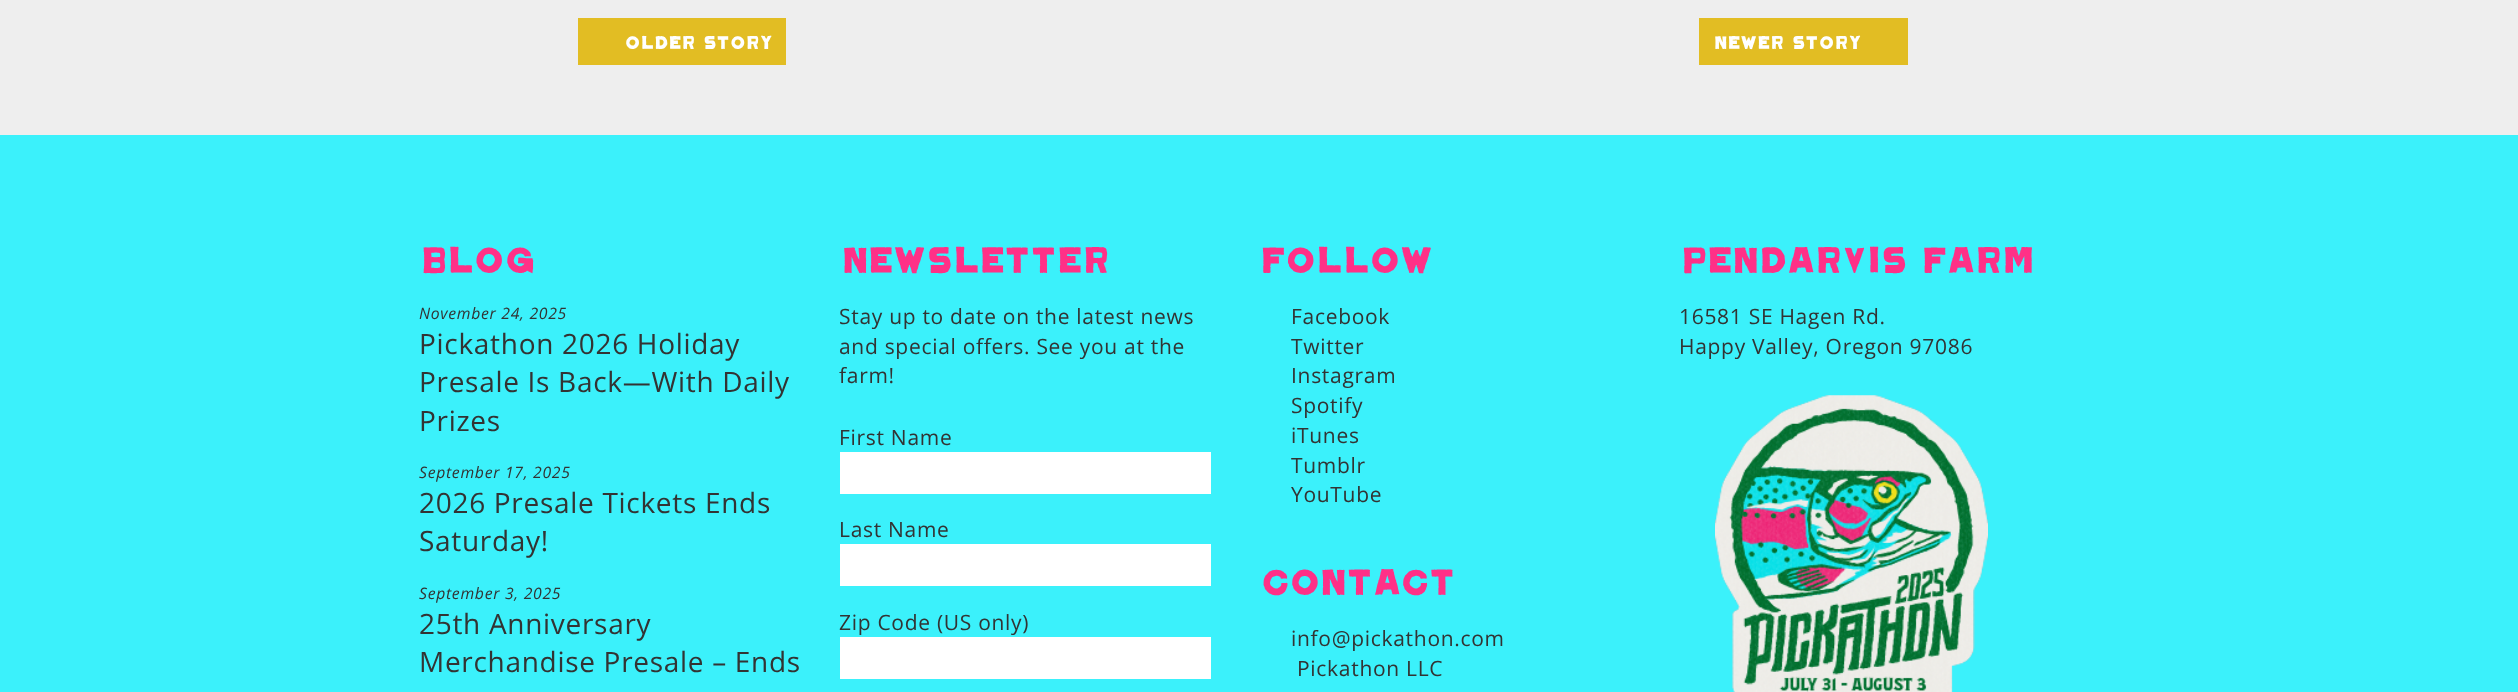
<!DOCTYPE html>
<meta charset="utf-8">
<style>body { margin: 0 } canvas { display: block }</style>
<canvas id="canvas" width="2518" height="692"></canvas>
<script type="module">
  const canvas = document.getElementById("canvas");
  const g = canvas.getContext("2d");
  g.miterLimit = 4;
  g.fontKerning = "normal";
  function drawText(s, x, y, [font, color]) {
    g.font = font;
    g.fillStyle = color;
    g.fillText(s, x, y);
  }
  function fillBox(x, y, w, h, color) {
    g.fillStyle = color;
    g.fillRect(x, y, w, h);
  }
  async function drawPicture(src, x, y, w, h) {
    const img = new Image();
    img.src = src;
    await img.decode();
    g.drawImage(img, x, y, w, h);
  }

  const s1 = ["21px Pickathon", "#FFFFFF"];
  const s2 = ["42px Pickathon", "#FF3087"];
  const s3 = ["italic 15.75px Open Sans", "#333333"];
  const s4 = ["28px Open Sans", "#333333"];
  const s5 = ["21px Open Sans", "#333333"];

  fillBox(0, 0, 2518, 692, "#EEEEEE");
  fillBox(578, 18, 208, 47, "#E2BD23");
  g.letterSpacing = "0.7px";
  drawText("older story", 624, 49, s1);
  fillBox(1699, 18, 209, 47, "#E2BD23");
  drawText("newer story", 1713, 49, s1);
  fillBox(0, 135, 2518, 557, "#3BF1FB");
  drawText("Blog", 419, 273, s2);
  drawText("November 24, 2025", 419, 319, s3);
  drawText("Pickathon 2026 Holiday", 419, 354, s4);
  drawText("Presale Is Back—With Daily", 419, 392, s4);
  drawText("Prizes", 419, 431, s4);
  drawText("September 17, 2025", 419, 478, s3);
  drawText("2026 Presale Tickets Ends", 419, 513, s4);
  drawText("Saturday!", 419, 551, s4);
  drawText("September 3, 2025", 419, 599, s3);
  drawText("25th Anniversary", 419, 634, s4);
  drawText("Merchandise Presale – Ends", 419, 672, s4);
  drawText("Newsletter", 839, 273, s2);
  drawText("Stay up to date on the latest news", 839, 324, s5);
  drawText("and special offers. See you at the", 839, 354, s5);
  drawText("farm!", 839, 383, s5);
  drawText("First Name", 839, 445, s5);
  fillBox(840, 452, 371, 42, "#FFFFFF");
  drawText("Last Name", 839, 537, s5);
  fillBox(840, 544, 371, 42, "#FFFFFF");
  drawText("Zip Code (US only)", 839, 630, s5);
  fillBox(840, 637, 371, 42, "#FFFFFF");
  drawText("Follow", 1259, 273, s2);
  drawText("Facebook", 1291, 324, s5);
  drawText("Twitter", 1291, 354, s5);
  drawText("Instagram", 1291, 383, s5);
  drawText("Spotify", 1291, 413, s5);
  drawText("iTunes", 1291, 443, s5);
  drawText("Tumblr", 1291, 473, s5);
  drawText("YouTube", 1291, 502, s5);
  drawText("Contact", 1259, 595, s2);
  drawText("info@pickathon.com", 1291, 646, s5);
  drawText("Pickathon LLC", 1297, 676, s5);
  drawText("Pendarvis farm", 1679, 273, s2);
  drawText("16581 SE Hagen Rd.", 1679, 324, s5);
  drawText("Happy Valley, Oregon 97086", 1679, 354, s5);
  await drawPicture("pic1.png", 1715, 395, 273, 297);
</script>
